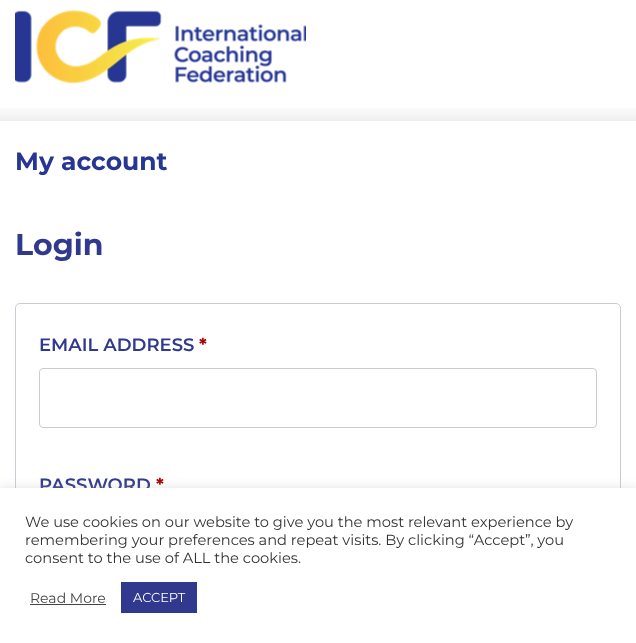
<!DOCTYPE html>
<meta charset="utf-8">
<style>body { margin: 0 } canvas { display: block }</style>
<canvas id="canvas" width="636" height="643"></canvas>
<script type="module">
  const canvas = document.getElementById("canvas");
  const g = canvas.getContext("2d");
  g.miterLimit = 4;
  g.fontKerning = "normal";
  function drawText(s, x, y, [font, color]) {
    g.font = font;
    g.fillStyle = color;
    g.fillText(s, x, y);
  }
  function fillBox(x, y, w, h, color) {
    g.fillStyle = color;
    g.fillRect(x, y, w, h);
  }
  async function drawPicture(src, x, y, w, h) {
    const img = new Image();
    img.src = src;
    await img.decode();
    g.drawImage(img, x, y, w, h);
  }

  const s1 = ["bold 25px Montserrat", "#263692"];
  const s2 = ["bold 30px Montserrat", "#30398D"];
  const s3 = ["600 18px Montserrat", "#30398D"];
  const s4 = ["bold 18px Montserrat", "#AA0000"];
  const s5 = ["14.65px Montserrat", "#333333"];
  const s6 = ["14px Montserrat", "#444444"];
  const s7 = ["13px Montserrat", "#FFFFFF"];

  fillBox(0, 0, 636, 643, "#FFFFFF");
  await drawPicture("pic1.png", 0, 108, 636, 13);
  await drawPicture("pic2.png", 15, 10, 291, 74);
  drawText("My account", 15, 170, s1);
  drawText("Login", 15, 255, s2);
  g.beginPath();
  g.roundRect(15.5, 303.5, 605, 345, 4.5);
  g.strokeStyle = "#CFC8D8";
  g.stroke();
  drawText("EMAIL ADDRESS", 39, 351, s3);
  drawText("*", 199, 351, s4);
  g.beginPath();
  g.roundRect(39.5, 368.5, 557, 59, 3.5);
  g.strokeStyle = "#CCCCCC";
  g.stroke();
  drawText("PASSWORD", 39, 491, s3);
  drawText("*", 156, 491, s4);
  g.fillStyle = "rgba(172, 171, 171, 0.3)";
  g.filter = "blur(5px)";
  g.beginPath();
  g.rect(0, 487, 636, 155);
  g.fill();
  g.filter = "none";
  fillBox(0, 488, 636, 155, "#FFFFFF");
  drawText("We use cookies on our website to give you the most relevant experience by", 25, 527, s5);
  drawText("remembering your preferences and repeat visits. By clicking “Accept”, you", 25, 545, s5);
  drawText("consent to the use of ALL the cookies.", 25, 563, s5);
  drawText("Read More", 30, 603, s6);
  fillBox(30, 604, 76, 1, "#444444");
  fillBox(121, 582, 76, 31, "#30398D");
  drawText("ACCEPT", 133, 602, s7);
</script>
